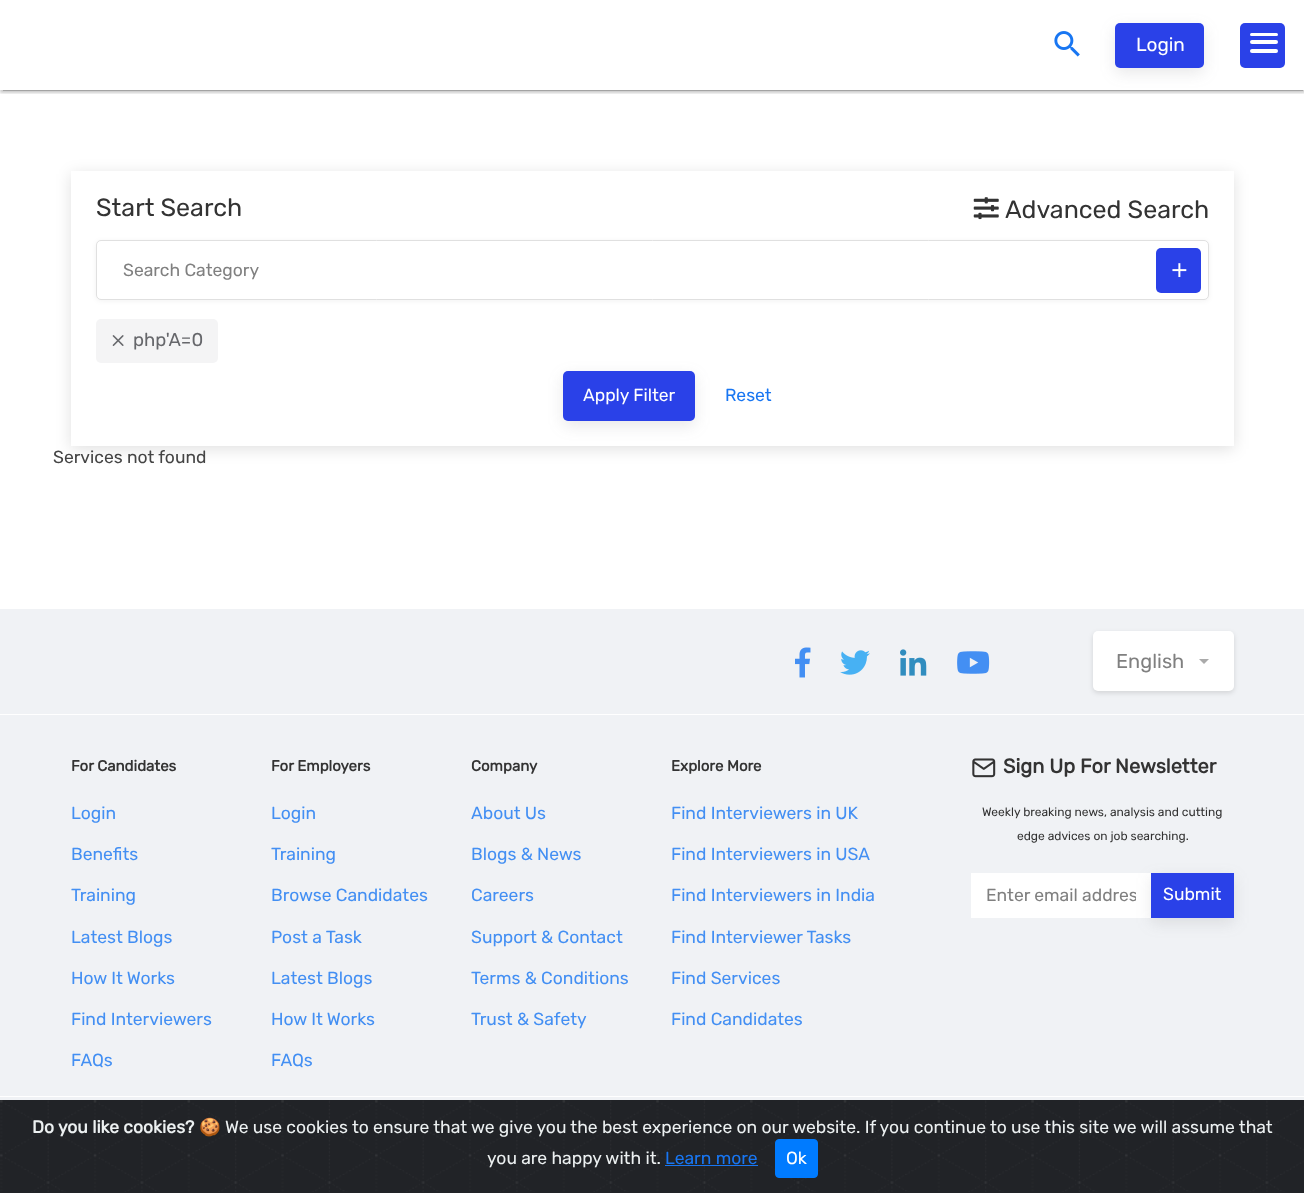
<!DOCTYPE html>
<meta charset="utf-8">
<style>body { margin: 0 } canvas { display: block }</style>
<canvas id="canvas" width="1304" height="1193"></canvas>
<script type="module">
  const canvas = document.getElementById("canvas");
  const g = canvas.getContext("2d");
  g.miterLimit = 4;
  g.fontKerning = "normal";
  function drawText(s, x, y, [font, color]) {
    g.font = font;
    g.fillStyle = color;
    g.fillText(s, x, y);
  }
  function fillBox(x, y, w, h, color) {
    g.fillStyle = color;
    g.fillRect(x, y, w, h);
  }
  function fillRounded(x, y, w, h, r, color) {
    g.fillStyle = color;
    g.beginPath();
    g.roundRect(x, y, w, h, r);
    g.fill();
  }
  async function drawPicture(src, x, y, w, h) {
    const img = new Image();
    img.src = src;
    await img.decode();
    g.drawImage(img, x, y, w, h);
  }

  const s1 = ["19px Rubik", "#FFFFFF"];
  const s2 = ["25px Rubik", "#333333"];
  const s3 = ["17.5px Rubik", "#808080"];
  const s4 = ["18.5px Rubik", "#66676B"];
  const s5 = ["17.5px Rubik", "#FFFFFF"];
  const s6 = ["17.5px Rubik", "#1876F2"];
  const s7 = ["17.5px Rubik", "#444444"];
  const s8 = ["20px Rubik", "#808080"];
  const s9 = ["bold 15px Rubik", "#333333"];
  const s10 = ["17.5px Rubik", "#438FF3"];
  const s11 = ["bold 20px Rubik", "#333333"];
  const s12 = ["12px Rubik", "#333333"];
  const s13 = ["bold 17.5px Rubik", "#ECF0F1"];
  const s14 = ["17.5px Noto Color Emoji", "#ECF0F1"];
  const s15 = ["17.5px Rubik", "#ECF0F1"];

  fillBox(0, 0, 1304, 1193, "#FFFFFF");
  g.save();
  g.beginPath();
  g.rect(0, 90, 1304, 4);
  g.clip();
  g.fillStyle = "rgba(0, 0, 0, 0.12)";
  g.filter = "blur(3px)";
  g.beginPath();
  g.rect(0, 1, 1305, 90);
  g.fill();
  g.filter = "none";
  g.fillStyle = "rgba(0, 0, 0, 0.14)";
  g.filter = "blur(1px)";
  g.beginPath();
  g.rect(0, 3, 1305, 90);
  g.fill();
  g.filter = "none";
  g.restore();
  g.save();
  g.beginPath();
  g.rect(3, 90, 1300, 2);
  g.clip();
  g.fillStyle = "rgba(0, 0, 0, 0.2)";
  g.filter = "blur(0.5px)";
  g.beginPath();
  g.rect(3, 6, 1300, 85);
  g.fill();
  g.filter = "none";
  g.restore();
  await drawPicture("pic1.png", 1054, 31, 26, 26);
  g.fillStyle = "rgba(102, 103, 107, 0.15)";
  g.filter = "blur(7.5px)";
  g.beginPath();
  g.roundRect(1115, 28, 89, 45, 5);
  g.fill();
  g.filter = "none";
  fillRounded(1115, 23, 89, 45, 5, "#2A41E8");
  drawText("Login", 1136, 51, s1);
  fillRounded(1240, 23, 45, 45, 5, "#2A41E8");
  fillRounded(1250, 49, 28, 4, 2, "#FFFFFF");
  fillRounded(1250, 33, 28, 3, 1.5, "#FFFFFF");
  fillRounded(1250, 40, 28, 4, 2, "#FFFFFF");
  g.save();
  g.beginPath();
  g.moveTo(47, 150);
  g.lineTo(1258, 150);
  g.lineTo(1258, 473);
  g.lineTo(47, 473);
  g.closePath();
  g.moveTo(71, 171);
  g.lineTo(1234, 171);
  g.lineTo(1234, 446);
  g.lineTo(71, 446);
  g.closePath();
  g.clip("evenodd");
  g.fillStyle = "rgba(0, 0, 0, 0.12)";
  g.filter = "blur(7.5px)";
  g.beginPath();
  g.rect(71, 174, 1163, 275);
  g.fill();
  g.filter = "none";
  g.restore();
  drawText("Start Search", 96, 216, s2);
  await drawPicture("pic2.png", 973, 197, 26, 23);
  drawText("Advanced Search", 1005, 218, s2);
  g.fillStyle = "rgba(0, 0, 0, 0.05)";
  g.filter = "blur(2.5px)";
  g.beginPath();
  g.roundRect(96, 241, 1113, 60, 5);
  g.fill();
  g.filter = "none";
  g.fillStyle = "#FFFFFF";
  g.beginPath();
  g.roundRect(96.5, 240.5, 1112, 59, 4.5);
  g.fill();
  g.strokeStyle = "#E0E0E0";
  g.stroke();
  drawText("Search Category", 123, 276, s3);
  fillRounded(1156, 248, 45, 45, 5, "#2A41E8");
  await drawPicture("pic3.png", 1172, 263, 15, 15);
  fillRounded(96, 319, 122, 44, 5, "#F4F4F5");
  await drawPicture("pic4.png", 112, 335, 12, 11);
  drawText("php'A=0", 133, 346, s4);
  g.fillStyle = "rgba(102, 103, 107, 0.15)";
  g.filter = "blur(7.5px)";
  g.beginPath();
  g.roundRect(563, 376, 132, 50, 5);
  g.fill();
  g.filter = "none";
  fillRounded(563, 371, 132, 50, 5, "#2A41E8");
  drawText("Apply Filter", 583, 401, s5);
  drawText("Reset", 725, 401, s6);
  drawText("Services not found", 53, 463, s7);
  fillBox(0, 609, 1304, 491, "#F0F2F5");
  await drawPicture("pic5.png", 795, 647, 16, 31);
  await drawPicture("pic6.png", 840, 650, 30, 25);
  await drawPicture("pic7.png", 900, 649, 27, 27);
  await drawPicture("pic8.png", 957, 651, 33, 23);
  g.fillStyle = "rgba(0, 0, 0, 0.12)";
  g.filter = "blur(2.5px)";
  g.beginPath();
  g.roundRect(1093, 633, 141, 60, 5);
  g.fill();
  g.filter = "none";
  fillRounded(1093, 631, 141, 60, 5, "#FFFFFF");
  drawText("English", 1116, 668, s8);
  g.fillStyle = "#AAAAAA";
  g.beginPath();
  g.moveTo(1199, 659);
  g.lineTo(1209, 659);
  g.lineTo(1204, 664);
  g.closePath();
  g.fill();
  fillBox(0, 714, 1304, 1, "#FFFFFF");
  drawText("For Candidates", 71, 771, s9);
  drawText("Login", 71, 819, s10);
  drawText("Benefits", 71, 860, s10);
  drawText("Training", 71, 901, s10);
  drawText("Latest Blogs", 71, 943, s10);
  drawText("How It Works", 71, 984, s10);
  drawText("Find Interviewers", 71, 1025, s10);
  drawText("FAQs", 71, 1066, s10);
  drawText("For Employers", 271, 771, s9);
  drawText("Login", 271, 819, s10);
  drawText("Training", 271, 860, s10);
  drawText("Browse Candidates", 271, 901, s10);
  drawText("Post a Task", 271, 943, s10);
  drawText("Latest Blogs", 271, 984, s10);
  drawText("How It Works", 271, 1025, s10);
  drawText("FAQs", 271, 1066, s10);
  drawText("Company", 471, 771, s9);
  drawText("About Us", 471, 819, s10);
  drawText("Blogs & News", 471, 860, s10);
  drawText("Careers", 471, 901, s10);
  drawText("Support & Contact", 471, 943, s10);
  drawText("Terms & Conditions", 471, 984, s10);
  drawText("Trust & Safety", 471, 1025, s10);
  drawText("Explore More", 671, 771, s9);
  drawText("Find Interviewers in UK", 671, 819, s10);
  drawText("Find Interviewers in USA", 671, 860, s10);
  drawText("Find Interviewers in India", 671, 901, s10);
  drawText("Find Interviewer Tasks", 671, 943, s10);
  drawText("Find Services", 671, 984, s10);
  drawText("Find Candidates", 671, 1025, s10);
  await drawPicture("pic9.png", 972, 758, 24, 20);
  drawText("Sign Up For Newsletter", 1003, 773, s11);
  drawText("Weekly breaking news, analysis and cutting", 982, 816, s12);
  drawText("edge advices on job searching.", 1017, 840, s12);
  fillBox(971, 873, 180, 45, "#FFFFFF");
  g.save();
  g.beginPath();
  g.rect(986, 885, 150, 21);
  g.clip();
  drawText("Enter email addres", 986, 901, s3);
  g.restore();
  g.fillStyle = "rgba(102, 103, 107, 0.15)";
  g.filter = "blur(7.5px)";
  g.beginPath();
  g.rect(1151, 878, 83, 45);
  g.fill();
  g.filter = "none";
  fillBox(1151, 873, 83, 45, "#2A41E8");
  drawText("Submit", 1163, 900, s5);
  fillBox(0, 1096, 1304, 1, "#FFFFFF");
  fillBox(0, 1192, 1304, 1, "#212327");
  await drawPicture("pic10.png", 0, 1100, 1304, 92);
  drawText("Do you like cookies?", 32, 1133, s13);
  drawText("🍪", 199, 1133, s14);
  drawText("We use cookies to ensure that we give you the best experience on our website. If you continue to use this site we will assume that", 225, 1133, s15);
  drawText("you are happy with it.", 487, 1164, s15);
  drawText("Learn more", 665, 1164, s6);
  fillBox(665, 1165, 93, 1, "#1876F2");
  g.fillStyle = "#007BFF";
  g.beginPath();
  g.roundRect(775.5, 1139.5, 42, 38, 3.5);
  g.fill();
  g.strokeStyle = "#007BFF";
  g.stroke();
  drawText("Ok", 786, 1164, s5);
</script>
